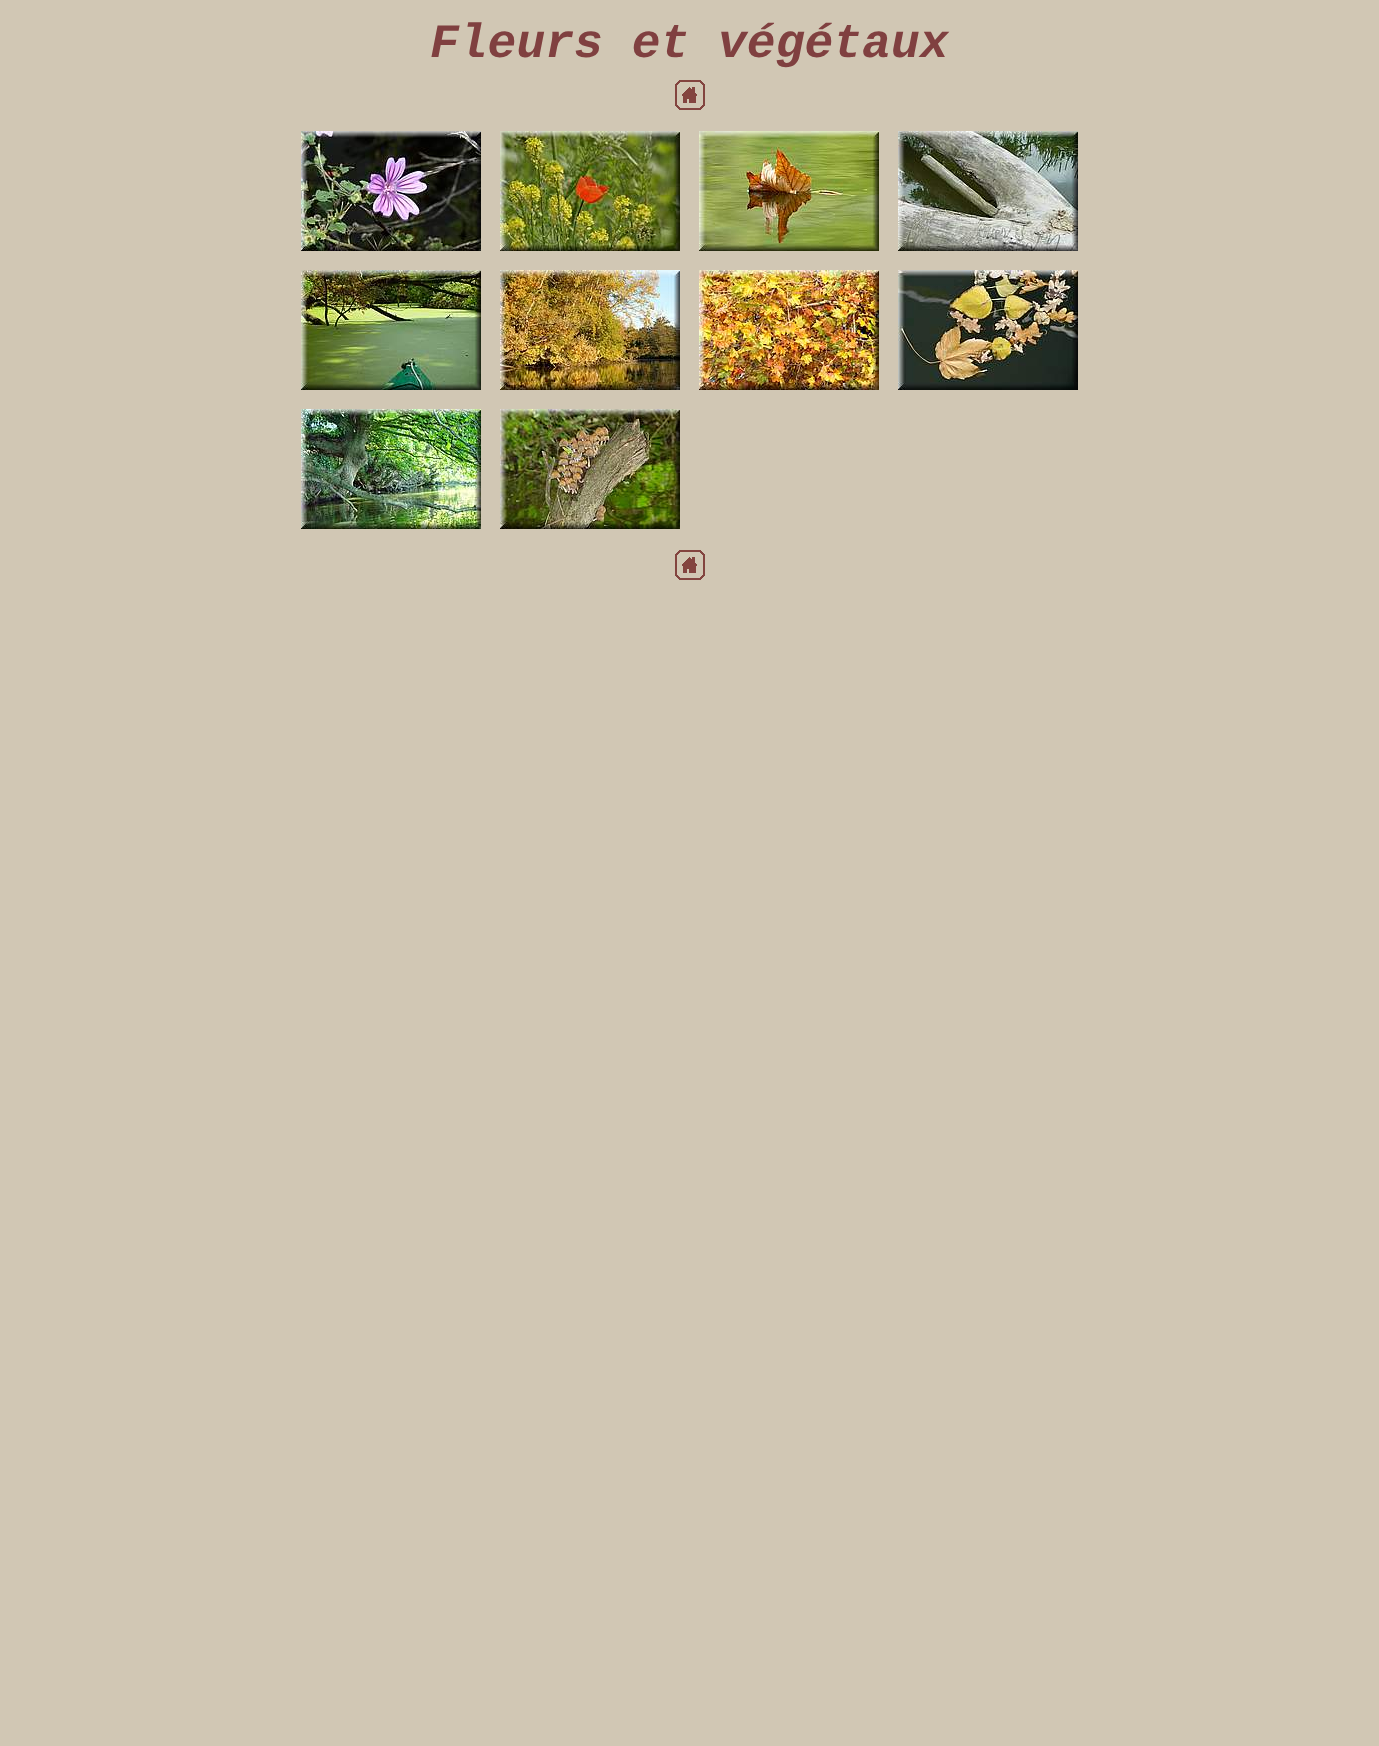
<!DOCTYPE html>
<meta charset="utf-8">
<style>body { margin: 0 } canvas { display: block }</style>
<canvas id="canvas" width="1379" height="1746"></canvas>
<script type="module">
  const canvas = document.getElementById("canvas");
  const g = canvas.getContext("2d");
  g.miterLimit = 4;
  g.fontKerning = "normal";
  function drawText(s, x, y, [font, color]) {
    g.font = font;
    g.fillStyle = color;
    g.fillText(s, x, y);
  }
  function fillBox(x, y, w, h, color) {
    g.fillStyle = color;
    g.fillRect(x, y, w, h);
  }
  async function drawPicture(src, x, y, w, h) {
    const img = new Image();
    img.src = src;
    await img.decode();
    g.drawImage(img, x, y, w, h);
  }

  const s1 = ["italic bold 48px Liberation Mono", "#804040"];

  fillBox(0, 0, 1379, 1746, "#D1C7B4");
  drawText("Fleurs et végétaux", 430, 57, s1);
  await drawPicture("pic1.png", 675, 80, 30, 30);
  await drawPicture("pic2.png", 301, 131, 180, 120);
  await drawPicture("pic3.png", 500, 131, 180, 120);
  await drawPicture("pic4.png", 699, 131, 180, 120);
  await drawPicture("pic5.png", 898, 131, 180, 120);
  await drawPicture("pic6.png", 301, 270, 180, 120);
  await drawPicture("pic7.png", 500, 270, 180, 120);
  await drawPicture("pic8.png", 699, 270, 180, 120);
  await drawPicture("pic9.png", 898, 270, 180, 120);
  await drawPicture("pic10.png", 301, 409, 180, 120);
  await drawPicture("pic11.png", 500, 409, 180, 120);
  await drawPicture("pic1.png", 675, 550, 30, 30);
</script>
